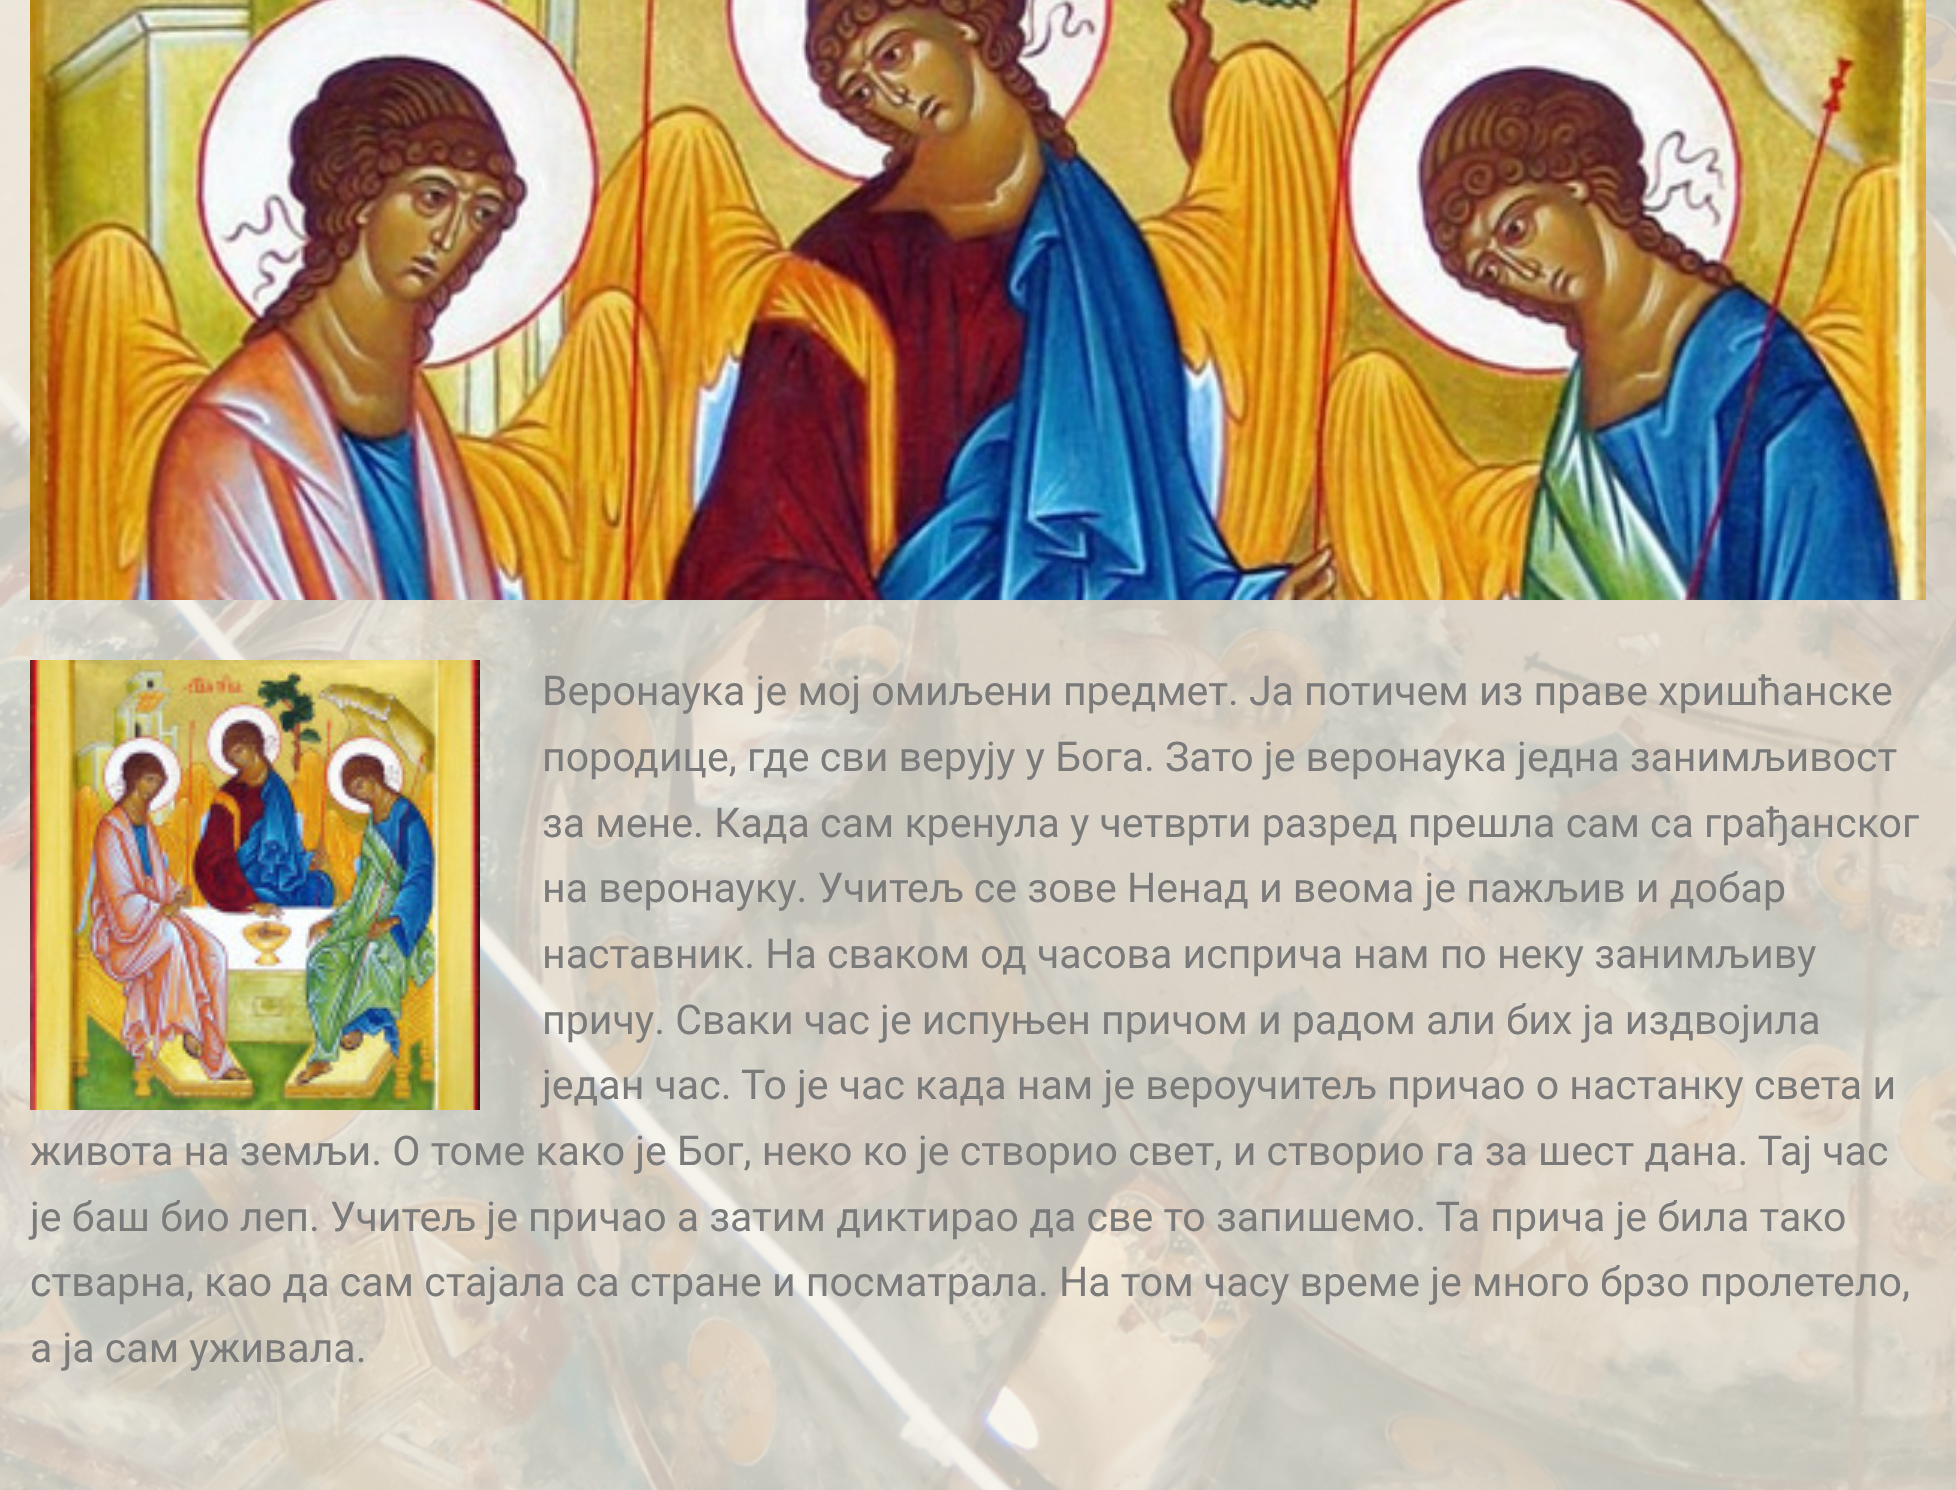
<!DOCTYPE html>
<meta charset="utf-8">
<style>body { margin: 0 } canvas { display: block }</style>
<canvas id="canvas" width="1956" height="1490"></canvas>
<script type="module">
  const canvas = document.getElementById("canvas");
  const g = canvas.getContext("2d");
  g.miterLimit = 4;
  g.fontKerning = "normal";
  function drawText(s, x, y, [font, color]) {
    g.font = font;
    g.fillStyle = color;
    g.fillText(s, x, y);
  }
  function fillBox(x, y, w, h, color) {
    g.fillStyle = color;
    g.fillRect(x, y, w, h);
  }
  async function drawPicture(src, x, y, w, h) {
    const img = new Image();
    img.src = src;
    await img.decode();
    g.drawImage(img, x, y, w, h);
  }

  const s1 = ["41.05px Roboto", "#7A7A7A"];

  fillBox(0, 0, 1956, 1490, "#FFFFFF");
  await drawPicture("pic1.png", 0, 0, 1956, 1490);
  await drawPicture("pic2.png", 30, 0, 1896, 600);
  await drawPicture("pic3.png", 30, 660, 450, 450);
  drawText("Веронаука је мој омиљени предмет. Ја потичем из праве хришћанске", 542, 705, s1);
  drawText("породице, где сви верују у Бога. Зато је веронаука једна занимљивост", 542, 771, s1);
  drawText("за мене. Када сам кренула у четврти разред прешла сам са грађанског", 542, 837, s1);
  drawText("на веронауку. Учитељ се зове Ненад и веома је пажљив и добар", 542, 902, s1);
  drawText("наставник. На сваком од часова исприча нам по неку занимљиву", 542, 968, s1);
  drawText("причу. Сваки час је испуњен причом и радом али бих ја издвојила", 542, 1034, s1);
  drawText("један час. То је час када нам је вероучитељ причао о настанку света и", 542, 1099, s1);
  drawText("живота на земљи. О томе како је Бог, неко ко је створио свет, и створио га за шест дана. Тај час", 30, 1165, s1);
  drawText("је баш био леп. Учитељ је причао а затим диктирао да све то запишемо. Та прича је била тако", 30, 1231, s1);
  drawText("стварна, као да сам стајала са стране и посматрала. На том часу време је много брзо пролетело,", 30, 1296, s1);
  drawText("а ја сам уживала.", 30, 1362, s1);
</script>
